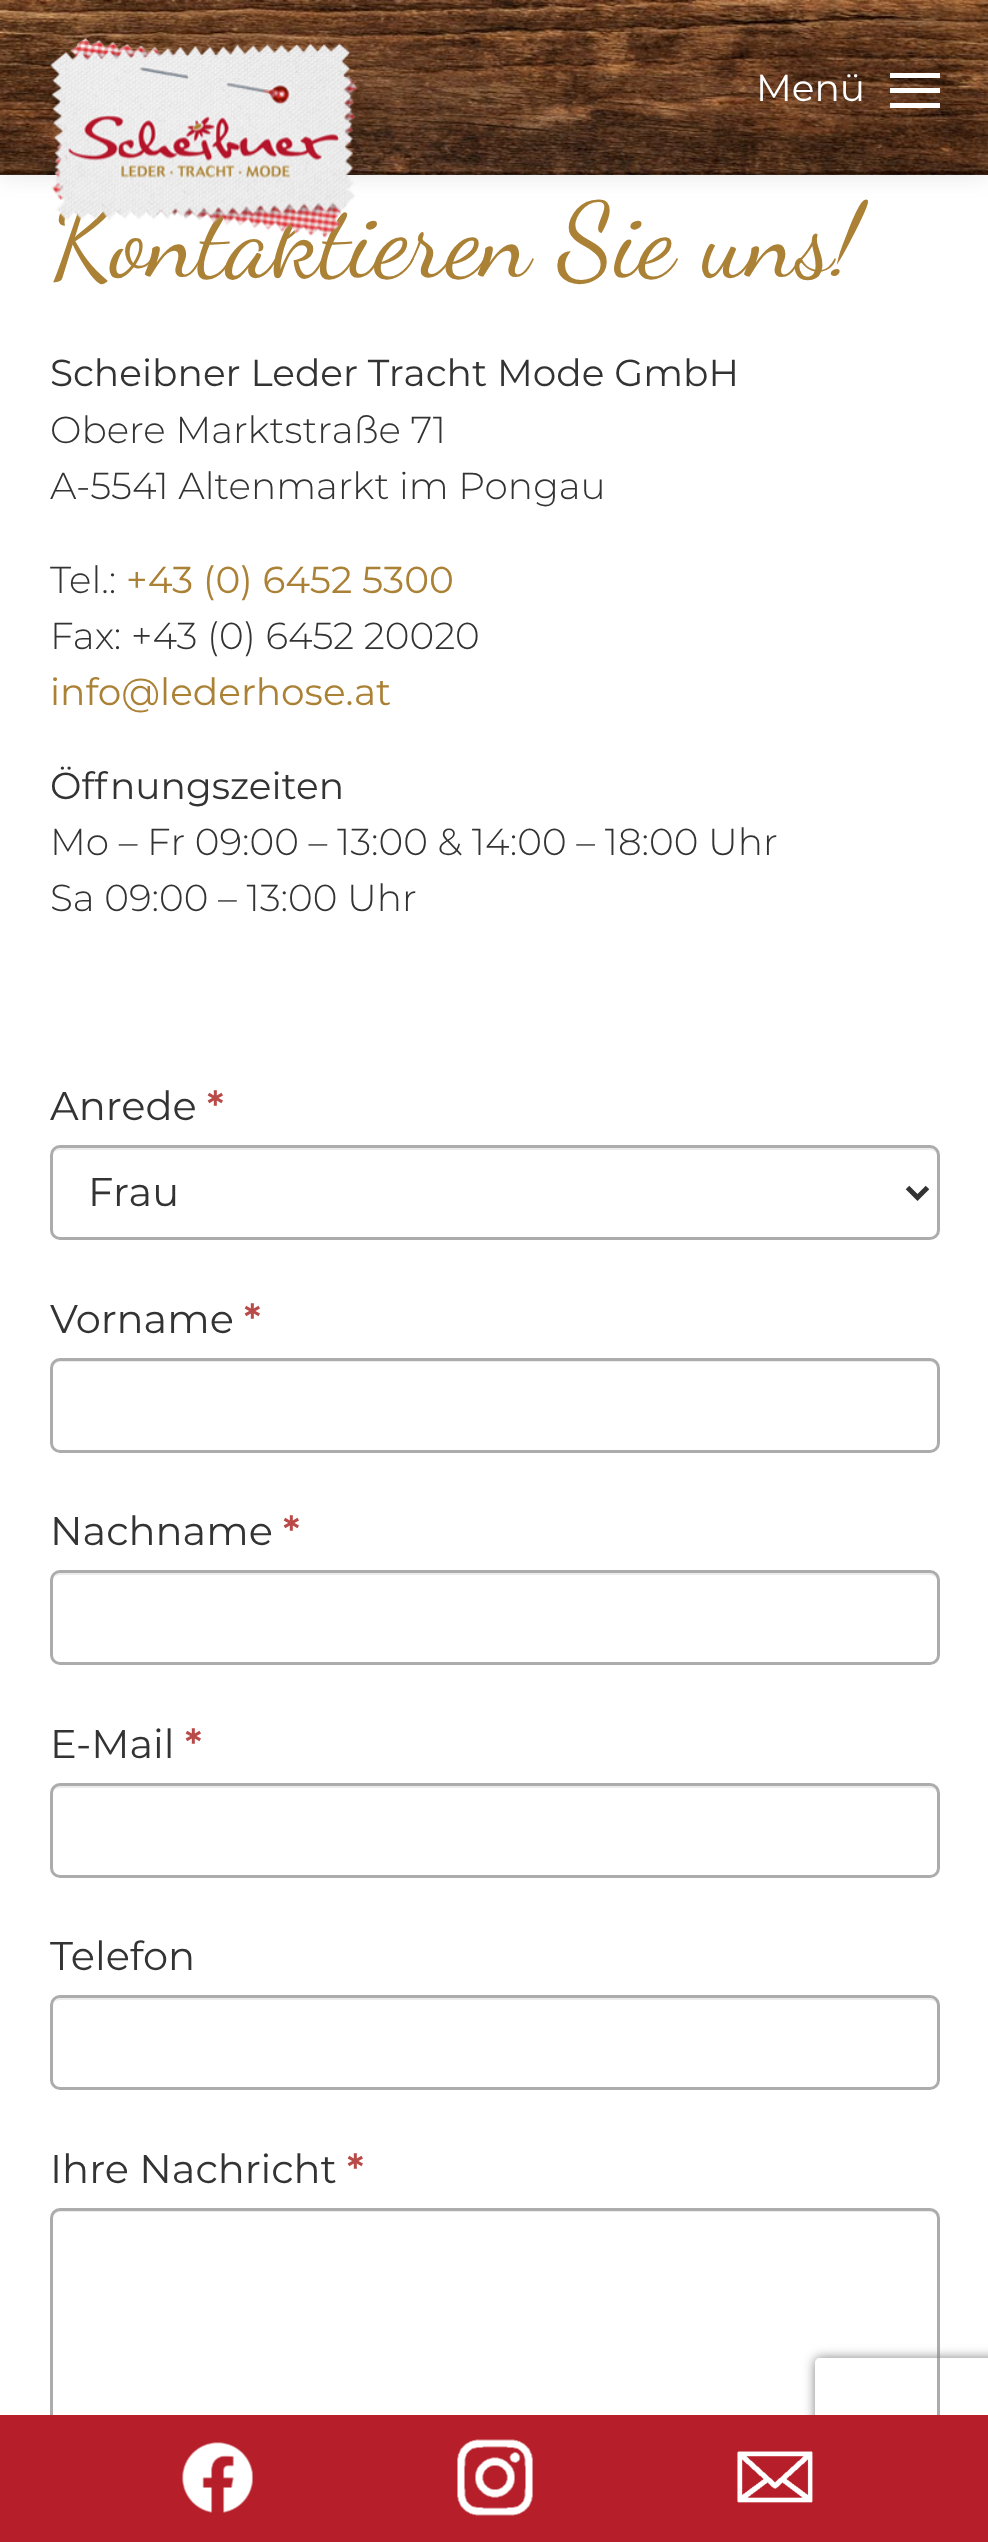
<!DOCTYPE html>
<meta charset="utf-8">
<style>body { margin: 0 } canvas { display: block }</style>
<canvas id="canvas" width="988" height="2542"></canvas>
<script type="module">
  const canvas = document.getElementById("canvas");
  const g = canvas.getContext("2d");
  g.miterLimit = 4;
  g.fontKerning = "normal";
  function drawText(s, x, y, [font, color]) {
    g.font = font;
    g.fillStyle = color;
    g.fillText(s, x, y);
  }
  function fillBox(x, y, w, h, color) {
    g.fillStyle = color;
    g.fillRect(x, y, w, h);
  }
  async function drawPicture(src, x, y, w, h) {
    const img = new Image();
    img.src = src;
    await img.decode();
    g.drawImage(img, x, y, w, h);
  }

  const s1 = ["105px Dancing Script", "#AB8136"];
  const s2 = ["37.5px Montserrat", "#FFFFFF"];
  const s3 = ["37.5px Montserrat", "#333333"];
  const s4 = ["300 37.5px Montserrat", "#333333"];
  const s5 = ["37.5px Montserrat", "#AB8136"];
  const s6 = ["40px Montserrat", "#333333"];
  const s7 = ["600 40px Montserrat", "#B94A48"];

  fillBox(0, 0, 988, 2542, "#FFFFFF");
  g.fillStyle = "rgba(0, 0, 0, 0.1)";
  g.filter = "blur(12.5px)";
  g.beginPath();
  g.rect(0, 0, 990, 175);
  g.fill();
  g.filter = "none";
  await drawPicture("pic1.png", 0, 0, 988, 175);
  drawText("Kontaktieren Sie uns!", 50, 275, s1);
  await drawPicture("pic2.png", 50, 37, 308, 201);
  drawText("Menü", 756, 101, s2);
  fillBox(890, 73, 50, 5, "#FFFFFF");
  fillBox(890, 88, 50, 5, "#FFFFFF");
  fillBox(890, 103, 50, 5, "#FFFFFF");
  drawText("Scheibner Leder Tracht Mode GmbH", 50, 386, s3);
  drawText("Obere Marktstraße 71", 50, 443, s4);
  drawText("A-5541 Altenmarkt im Pongau", 50, 499, s4);
  drawText("Tel.:", 50, 593, s4);
  drawText("+43 (0) 6452 5300", 126, 593, s5);
  drawText("Fax: +43 (0) 6452 20020", 50, 649, s4);
  drawText("info@lederhose.at", 50, 705, s5);
  drawText("Öffnungszeiten", 50, 799, s3);
  drawText("Mo – Fr 09:00 – 13:00 & 14:00 – 18:00 Uhr", 50, 855, s4);
  drawText("Sa 09:00 – 13:00 Uhr", 50, 911, s4);
  drawText("Anrede", 50, 1120, s6);
  drawText("*", 207, 1120, s7);
  g.fillStyle = "#ECECEC";
  g.beginPath();
  g.moveTo(60, 1150);
  g.lineTo(930, 1150);
  g.bezierCurveTo(934, 1150, 938, 1153, 938, 1158);
  g.lineTo(938, 1156);
  g.bezierCurveTo(938, 1152, 934, 1148, 930, 1148);
  g.lineTo(61, 1148);
  g.bezierCurveTo(58, 1148, 55, 1150, 53, 1153);
  g.bezierCurveTo(55, 1151, 58, 1150, 60, 1150);
  g.closePath();
  g.fill();
  g.beginPath();
  g.roundRect(51.5, 1146.5, 887, 92, 8.5);
  g.strokeStyle = "#ACACAC";
  g.lineWidth = 3;
  g.stroke();
  g.beginPath();
  g.moveTo(907.5, 1187.5);
  g.lineTo(917.5, 1197.5);
  g.lineTo(927.5, 1187.5);
  g.strokeStyle = "#333333";
  g.lineWidth = 5;
  g.stroke();
  drawText("Frau", 88, 1206, s6);
  drawText("Vorname", 50, 1333, s6);
  drawText("*", 244, 1333, s7);
  g.fillStyle = "#ECECEC";
  g.beginPath();
  g.moveTo(60, 1362);
  g.lineTo(930, 1362);
  g.bezierCurveTo(934, 1362, 938, 1366, 938, 1370);
  g.lineTo(938, 1368);
  g.bezierCurveTo(938, 1364, 934, 1360, 930, 1360);
  g.lineTo(61, 1360);
  g.bezierCurveTo(57, 1360, 54, 1363, 53, 1366);
  g.bezierCurveTo(55, 1364, 57, 1362, 60, 1362);
  g.closePath();
  g.fill();
  g.beginPath();
  g.roundRect(51.5, 1359.5, 887, 92, 8.5);
  g.strokeStyle = "#ACACAC";
  g.lineWidth = 3;
  g.stroke();
  drawText("Nachname", 50, 1545, s6);
  drawText("*", 283, 1545, s7);
  g.fillStyle = "#ECECEC";
  g.beginPath();
  g.moveTo(60, 1575);
  g.lineTo(930, 1575);
  g.bezierCurveTo(934, 1575, 938, 1578, 938, 1582);
  g.lineTo(938, 1581);
  g.bezierCurveTo(938, 1577, 934, 1573, 930, 1573);
  g.lineTo(61, 1573);
  g.bezierCurveTo(58, 1573, 55, 1575, 54, 1578);
  g.bezierCurveTo(55, 1576, 58, 1575, 60, 1575);
  g.closePath();
  g.fill();
  g.beginPath();
  g.roundRect(51.5, 1571.5, 887, 92, 8.5);
  g.stroke();
  drawText("E-Mail", 50, 1758, s6);
  drawText("*", 185, 1758, s7);
  g.fillStyle = "#ECECEC";
  g.beginPath();
  g.moveTo(60, 1788);
  g.lineTo(930, 1788);
  g.bezierCurveTo(934, 1788, 938, 1791, 938, 1795);
  g.lineTo(938, 1793);
  g.bezierCurveTo(938, 1789, 934, 1785, 930, 1785);
  g.lineTo(61, 1785);
  g.bezierCurveTo(57, 1785, 54, 1788, 53, 1791);
  g.bezierCurveTo(55, 1789, 57, 1788, 60, 1788);
  g.closePath();
  g.fill();
  g.beginPath();
  g.roundRect(51.5, 1784.5, 887, 92, 8.5);
  g.stroke();
  drawText("Telefon", 50, 1970, s6);
  g.fillStyle = "#ECECEC";
  g.beginPath();
  g.moveTo(60, 2000);
  g.lineTo(930, 2000);
  g.bezierCurveTo(934, 2000, 938, 2003, 938, 2008);
  g.lineTo(938, 2006);
  g.bezierCurveTo(938, 2002, 934, 1998, 930, 1998);
  g.lineTo(61, 1998);
  g.bezierCurveTo(58, 1998, 55, 2000, 53, 2003);
  g.bezierCurveTo(55, 2001, 58, 2000, 60, 2000);
  g.closePath();
  g.fill();
  g.beginPath();
  g.roundRect(51.5, 1996.5, 887, 92, 8.5);
  g.stroke();
  drawText("Ihre Nachricht", 50, 2183, s6);
  drawText("*", 347, 2183, s7);
  g.fillStyle = "#ECECEC";
  g.beginPath();
  g.moveTo(60, 2212);
  g.lineTo(930, 2212);
  g.bezierCurveTo(934, 2212, 938, 2216, 938, 2220);
  g.lineTo(938, 2218);
  g.bezierCurveTo(938, 2214, 934, 2210, 930, 2210);
  g.lineTo(61, 2210);
  g.bezierCurveTo(57, 2210, 54, 2213, 53, 2216);
  g.bezierCurveTo(55, 2214, 57, 2212, 60, 2212);
  g.closePath();
  g.fill();
  g.beginPath();
  g.roundRect(51.5, 2209.5, 887, 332, 8.5);
  g.stroke();
  g.save();
  g.beginPath();
  g.moveTo(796, 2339);
  g.lineTo(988, 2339);
  g.lineTo(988, 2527);
  g.lineTo(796, 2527);
  g.closePath();
  g.moveTo(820, 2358);
  g.lineTo(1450, 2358);
  g.bezierCurveTo(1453, 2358, 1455, 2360, 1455, 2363);
  g.lineTo(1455, 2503);
  g.bezierCurveTo(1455, 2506, 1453, 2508, 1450, 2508);
  g.lineTo(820, 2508);
  g.bezierCurveTo(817, 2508, 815, 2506, 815, 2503);
  g.lineTo(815, 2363);
  g.bezierCurveTo(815, 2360, 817, 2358, 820, 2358);
  g.closePath();
  g.clip("evenodd");
  g.fillStyle = "#808080";
  g.filter = "blur(6px)";
  g.beginPath();
  g.roundRect(815, 2358, 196, 150, 5);
  g.fill();
  g.filter = "none";
  g.restore();
  fillBox(0, 2415, 988, 127, "#B61F29");
  await drawPicture("pic3.png", 182, 2442, 71, 71);
  await drawPicture("pic4.png", 457, 2439, 76, 77);
  await drawPicture("pic5.png", 737, 2451, 76, 52);
</script>
